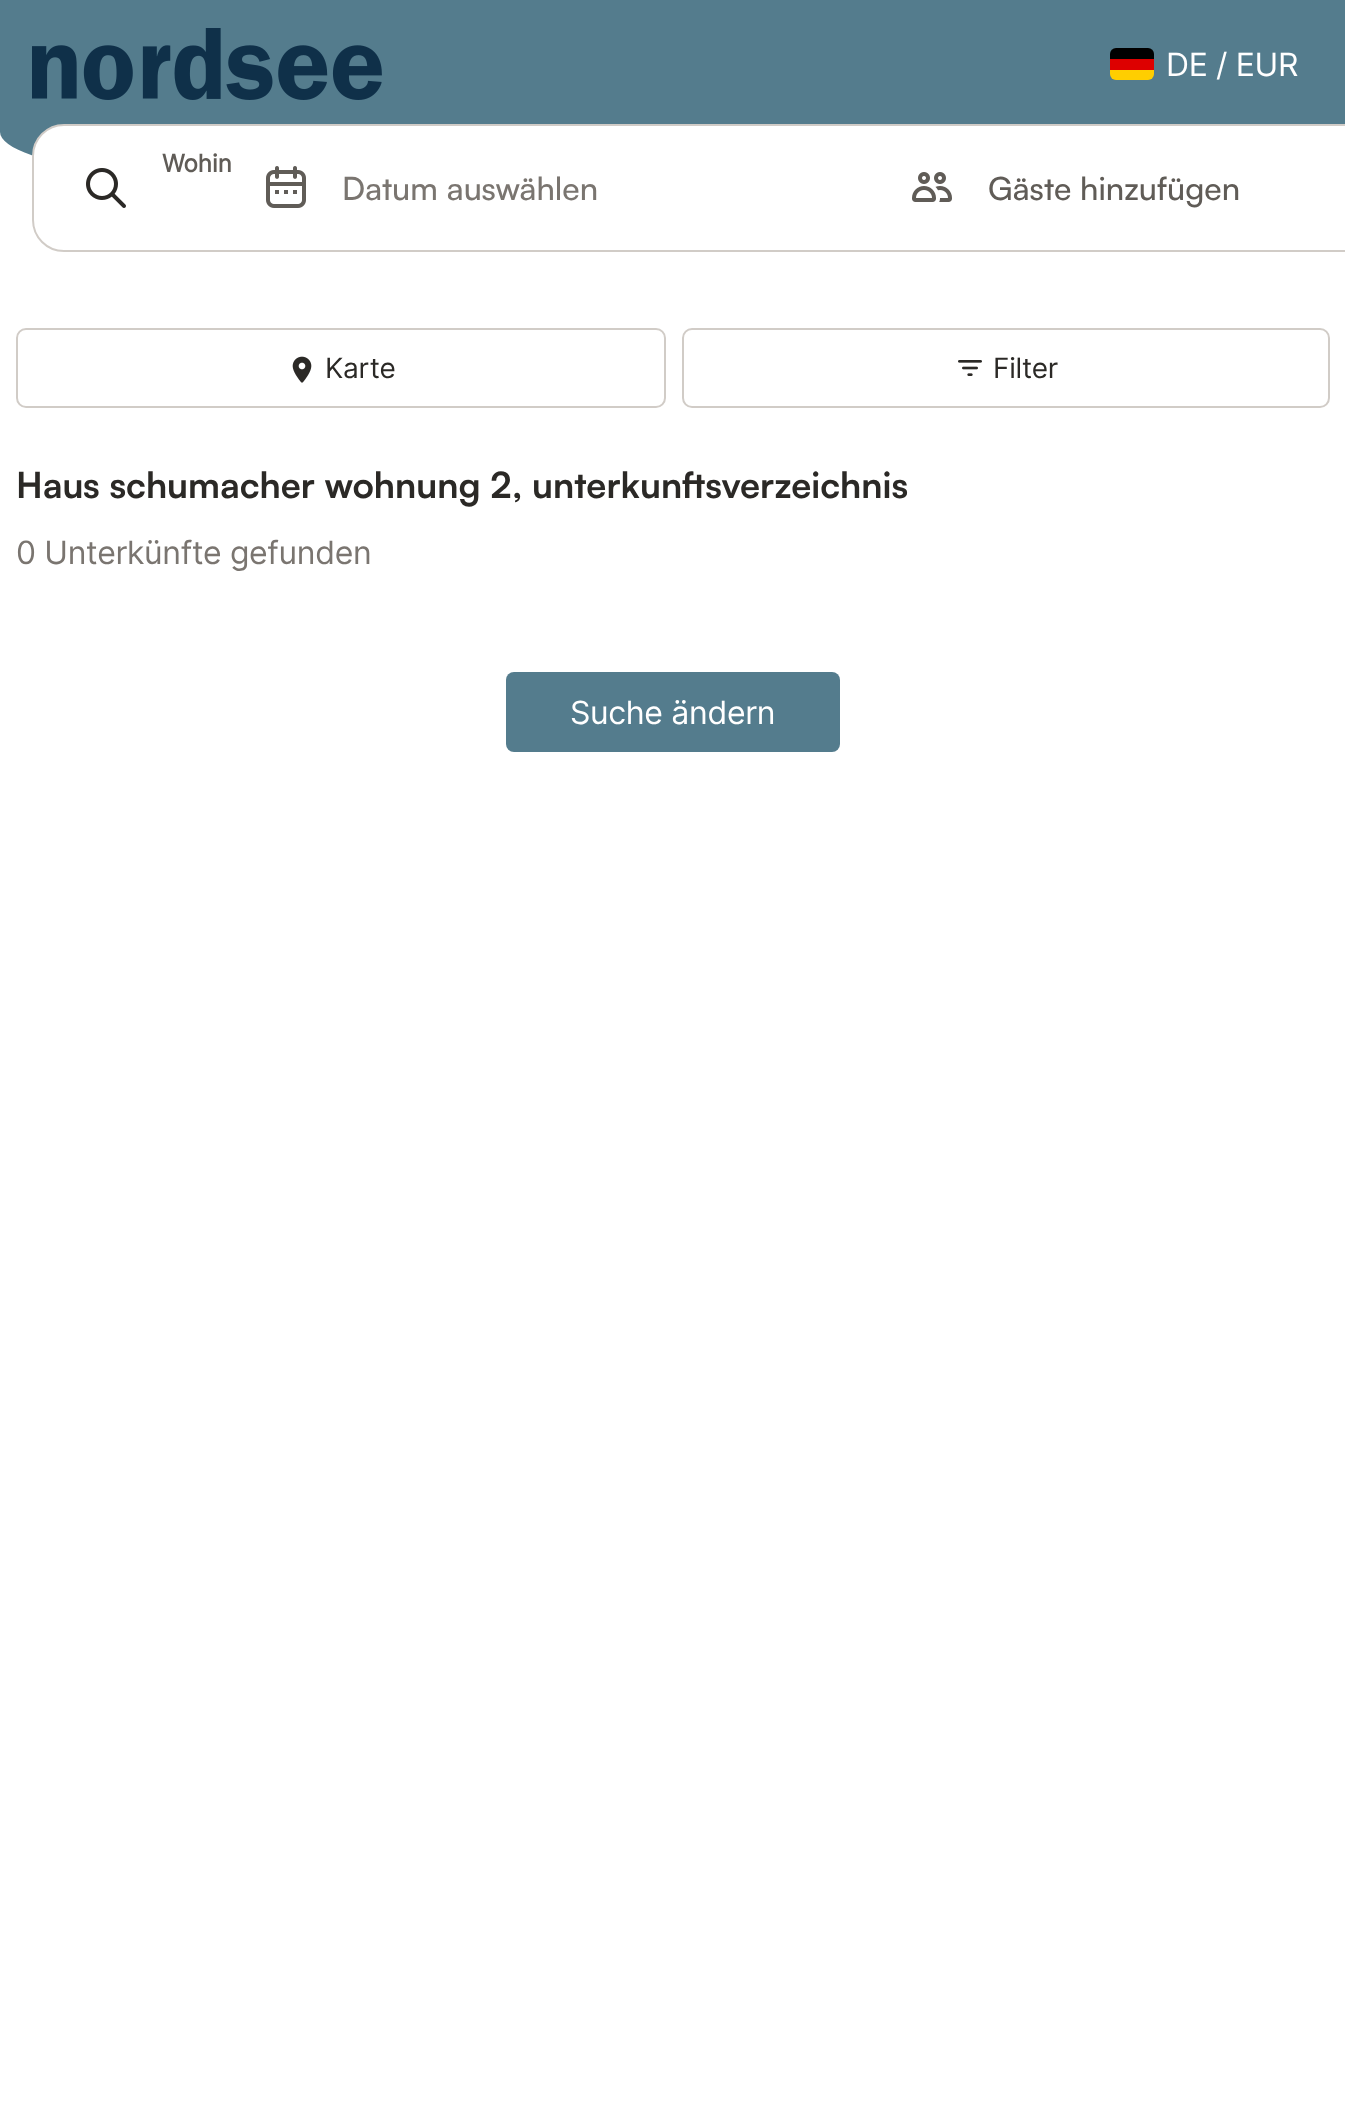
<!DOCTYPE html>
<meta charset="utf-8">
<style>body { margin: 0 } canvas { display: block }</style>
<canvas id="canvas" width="1345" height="2122"></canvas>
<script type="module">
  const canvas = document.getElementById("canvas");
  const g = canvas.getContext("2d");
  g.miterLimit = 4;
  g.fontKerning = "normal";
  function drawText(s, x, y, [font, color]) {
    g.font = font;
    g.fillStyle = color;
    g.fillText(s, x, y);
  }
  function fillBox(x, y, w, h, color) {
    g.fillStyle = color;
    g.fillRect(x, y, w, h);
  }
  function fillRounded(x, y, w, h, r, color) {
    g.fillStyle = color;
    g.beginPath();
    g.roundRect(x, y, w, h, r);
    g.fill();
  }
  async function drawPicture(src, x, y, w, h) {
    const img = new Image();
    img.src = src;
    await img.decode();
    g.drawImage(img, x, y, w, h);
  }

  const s1 = ["32px Inter", "#FFFFFF"];
  const s2 = ["bold 24px Inter", "#605C57"];
  const s3 = ["500 32px Satoshi", "#7A7570"];
  const s4 = ["500 32px Satoshi", "#605C57"];
  const s5 = ["28px Inter", "#2B2926"];
  const s6 = ["bold 36px Satoshi", "#2B2926"];
  const s7 = ["32px Inter", "#7A7570"];

  fillBox(0, 0, 1345, 2122, "#FFFFFF");
  g.fillStyle = "#547C8D";
  g.beginPath();
  g.moveTo(0, 0);
  g.lineTo(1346, 0);
  g.lineTo(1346, 132);
  g.bezierCurveTo(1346, 165, 1165, 192, 942, 192);
  g.lineTo(404, 192);
  g.bezierCurveTo(181, 192, 0, 165, 0, 132);
  g.closePath();
  g.fill();
  await drawPicture("pic1.png", 32, 28, 350, 72);
  g.fillStyle = "#FFCE00";
  g.beginPath();
  g.roundRect(1110, 70, 44, 10, [0, 0, 6, 6]);
  g.fill();
  g.fillStyle = "#000000";
  g.beginPath();
  g.roundRect(1110, 48, 44, 11, [6, 6, 0, 0]);
  g.fill();
  fillBox(1110, 59, 44, 11, "#DD0000");
  g.letterSpacing = "-0.35px";
  drawText("DE / EUR", 1166, 76, s1);
  g.beginPath();
  g.roundRect(33, 125, 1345, 126, 31);
  g.fill();
  g.strokeStyle = "#D1CCC7";
  g.lineWidth = 2;
  g.stroke();
  g.letterSpacing = "0px";
  drawText("Wohin", 162, 172, s2);
  await drawPicture("pic2.png", 86, 168, 40, 40);
  await drawPicture("pic3.png", 266, 166, 40, 42);
  drawText("Datum auswählen", 342, 200, s3);
  await drawPicture("pic4.png", 912, 172, 40, 30);
  drawText("Gäste hinzufügen", 988, 200, s4);
  g.beginPath();
  g.roundRect(17, 329, 648, 78, 9);
  g.stroke();
  await drawPicture("pic5.png", 292, 356, 20, 27);
  g.letterSpacing = "-0.25px";
  drawText("Karte", 325, 378, s5);
  g.beginPath();
  g.roundRect(683, 329, 646, 78, 9);
  g.stroke();
  await drawPicture("pic6.png", 958, 360, 24, 16);
  drawText("Filter", 993, 378, s5);
  g.letterSpacing = "0px";
  drawText("Haus schumacher wohnung 2, unterkunftsverzeichnis", 16, 498, s6);
  g.letterSpacing = "-0.35px";
  drawText("0 Unterkünfte gefunden", 16, 564, s7);
  fillRounded(506, 672, 334, 80, 8, "#547C8D");
  drawText("Suche ändern", 570, 724, s1);
</script>
